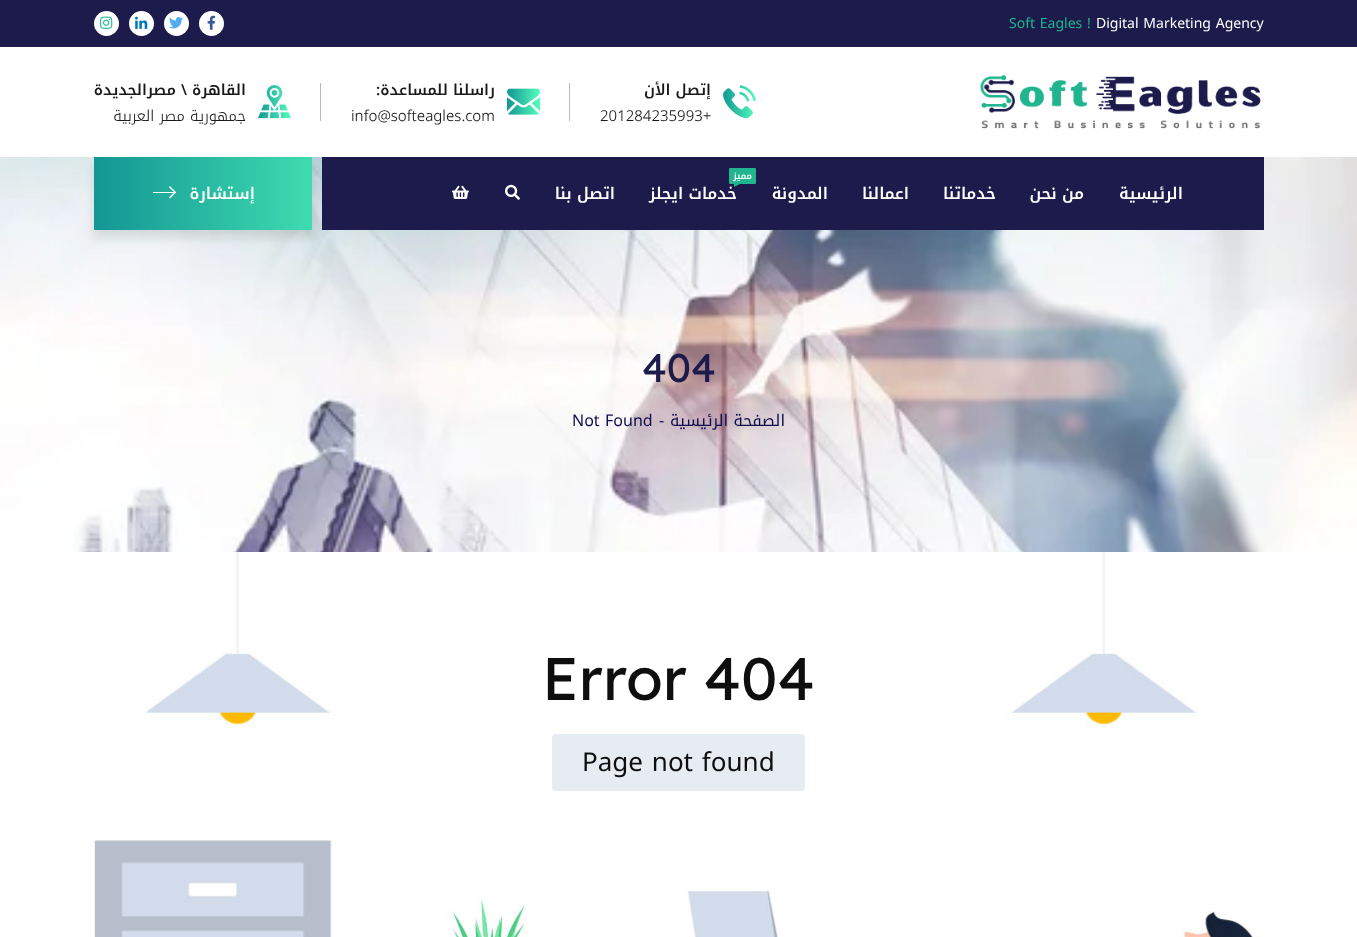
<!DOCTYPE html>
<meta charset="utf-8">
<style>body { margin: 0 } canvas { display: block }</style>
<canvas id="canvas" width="1357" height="937"></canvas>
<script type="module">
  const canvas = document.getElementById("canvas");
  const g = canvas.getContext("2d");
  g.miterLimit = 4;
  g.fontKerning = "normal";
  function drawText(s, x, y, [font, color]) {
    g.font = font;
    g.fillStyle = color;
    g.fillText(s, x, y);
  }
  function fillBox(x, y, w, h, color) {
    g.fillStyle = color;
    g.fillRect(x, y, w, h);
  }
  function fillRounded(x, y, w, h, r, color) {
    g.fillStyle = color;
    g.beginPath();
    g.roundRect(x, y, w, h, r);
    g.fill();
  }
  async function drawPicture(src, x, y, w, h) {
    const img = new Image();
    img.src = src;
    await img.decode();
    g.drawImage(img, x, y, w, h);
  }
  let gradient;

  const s1 = ["14px Noto Kufi Arabic", "#FFFFFF"];
  const s2 = ["14px Noto Kufi Arabic", "#20B58F"];
  const s3 = ["600 15px Noto Kufi Arabic", "#1A1A1A"];
  const s4 = ["300 15px Noto Kufi Arabic", "#1A1A1A"];
  const s5 = ["600 16px Noto Kufi Arabic", "#FFFFFF"];
  const s6 = ["600 9px Noto Kufi Arabic", "#FFFFFF"];
  const s7 = ["40px Readex Pro", "#1D1B4C"];
  const s8 = ["16px Noto Kufi Arabic", "#0D0C4C"];
  const s9 = ["60px Readex Pro", "#0E0E0E"];
  const s10 = ["26px Noto Kufi Arabic", "#0E0E0E"];

  fillBox(0, 0, 1357, 937, "#FFFFFF");
  fillBox(0, 0, 1357, 47, "#1D1B4C");
  drawText("Digital Marketing Agency", 1096, 28, s1);
  drawText("Soft Eagles !", 1009, 28, s2);
  g.fillStyle = "#FFFFFF";
  g.beginPath();
  g.arc(211.5, 23.5, 12.5, 0, Math.PI * 2);
  g.fill();
  await drawPicture("pic1.png", 207, 15, 9, 15);
  g.beginPath();
  g.arc(176.5, 23.5, 12.5, 0, Math.PI * 2);
  g.fill();
  await drawPicture("pic2.png", 169, 17, 14, 12);
  g.beginPath();
  g.arc(141.5, 23.5, 12.5, 0, Math.PI * 2);
  g.fill();
  await drawPicture("pic3.png", 135, 16, 13, 13);
  g.beginPath();
  g.arc(106.5, 23.5, 12.5, 0, Math.PI * 2);
  g.fill();
  await drawPicture("pic4.png", 100, 16, 13, 13);
  await drawPicture("pic5.png", 980, 74, 281, 55);
  await drawPicture("pic6.png", 723, 85, 33, 34);
  g.direction = "rtl";
  drawText("إتصل الأن", 711, 95, s3);
  g.direction = "ltr";
  drawText("201284235993+", 600, 121, s4);
  fillBox(569, 83, 1, 38, "#BABABA");
  await drawPicture("pic7.png", 507, 88, 33, 27);
  g.direction = "rtl";
  drawText("راسلنا للمساعدة:", 495, 95, s3);
  g.direction = "ltr";
  drawText("info@softeagles.com", 351, 121, s4);
  fillBox(320, 83, 1, 38, "#BABABA");
  await drawPicture("pic8.png", 258, 85, 33, 34);
  g.direction = "rtl";
  drawText("القاهرة \\ مصرالجديدة", 246, 95, s3);
  drawText("جمهورية مصر العربية", 246, 121, s4);
  await drawPicture("pic12.png", 0, 157, 1357, 395);
  fillBox(322, 157, 942, 73, "#1D1B4C");
  drawText("الرئيسية", 1183, 199, s5);
  drawText("من نحن", 1084, 199, s5);
  drawText("خدماتنا", 996, 199, s5);
  drawText("اعمالنا", 909, 199, s5);
  drawText("المدونة", 828, 199, s5);
  fillRounded(729, 168, 27, 16, 1, "#20B58F");
  drawText("مميز", 752, 179, s6);
  drawText("خدمات ايجلز", 737, 199, s5);
  g.fillStyle = "#20B58F";
  g.beginPath();
  g.moveTo(734, 184);
  g.lineTo(740, 184);
  g.lineTo(734, 187);
  g.closePath();
  g.fill();
  drawText("اتصل بنا", 615, 199, s5);
  await drawPicture("pic9.png", 505, 184, 15, 16);
  await drawPicture("pic10.png", 452, 185, 17, 14);
  g.fillStyle = "rgba(12, 12, 12, 0.1)";
  g.filter = "blur(5px)";
  g.beginPath();
  g.rect(94, 165, 218, 73);
  g.fill();
  g.filter = "none";
  gradient = g.createLinearGradient(94, 194, 748, 193);
  gradient.addColorStop(0, "#139694");
  gradient.addColorStop(0.5, "#54FEBD");
  gradient.addColorStop(1, "#139694");
  g.fillStyle = gradient;
  g.fillRect(94, 157, 218, 73);
  drawText("إستشارة", 255, 199, s5);
  await drawPicture("pic11.png", 169, 186, 7, 13);
  fillBox(153, 192, 23, 1, "#FFFFFF");
  g.direction = "ltr";
  drawText("404", 642, 382, s7);
  g.direction = "rtl";
  drawText("الصفحة الرئيسية", 785, 426, s8);
  g.direction = "ltr";
  drawText("-", 659, 426, s8);
  drawText("Not Found", 572, 426, s8);
  await drawPicture("pic13.png", 90, 552, 1168, 385);
  drawText("Error 404", 542, 700, s9);
  fillRounded(552, 734, 253, 57, 4, "#E7ECF3");
  drawText("Page not found", 582, 771, s10);
</script>
